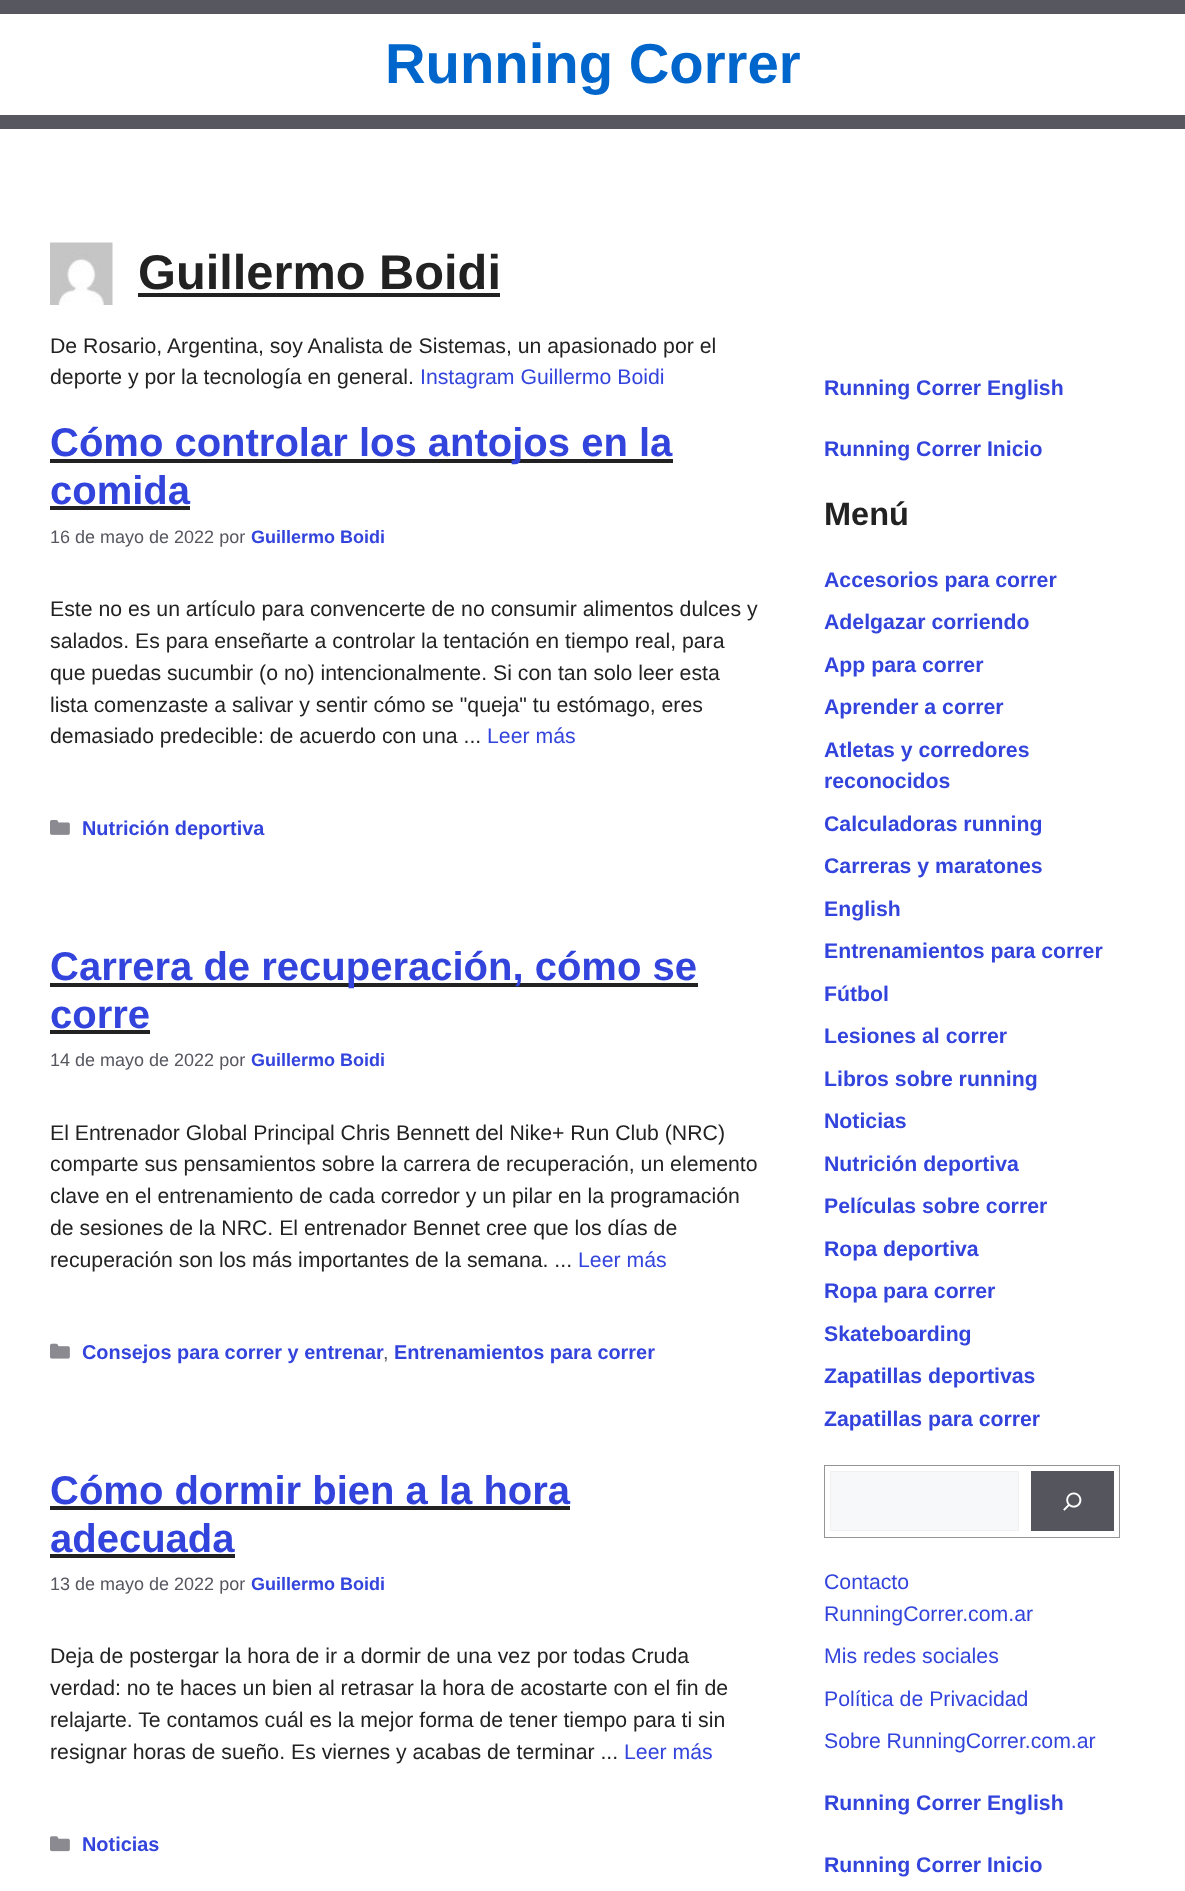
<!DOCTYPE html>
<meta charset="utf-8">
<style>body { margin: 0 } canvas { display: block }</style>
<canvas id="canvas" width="1185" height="1891"></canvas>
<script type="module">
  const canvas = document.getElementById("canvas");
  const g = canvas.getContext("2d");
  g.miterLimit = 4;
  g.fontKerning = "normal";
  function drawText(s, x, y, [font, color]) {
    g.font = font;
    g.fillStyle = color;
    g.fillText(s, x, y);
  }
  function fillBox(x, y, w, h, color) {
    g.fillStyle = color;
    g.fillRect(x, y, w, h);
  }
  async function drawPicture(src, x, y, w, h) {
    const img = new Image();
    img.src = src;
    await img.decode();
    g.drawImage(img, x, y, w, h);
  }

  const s1 = ["bold 56.25px Liberation Sans", "#0066CC"];
  const s2 = ["bold 48.75px Liberation Sans", "#222222"];
  const s3 = ["21.25px Liberation Sans", "#222222"];
  const s4 = ["21.25px Liberation Sans", "#3344DD"];
  const s5 = ["bold 40px Liberation Sans", "#3344DD"];
  const s6 = ["18px Liberation Sans", "#575760"];
  const s7 = ["bold 18px Liberation Sans", "#3344DD"];
  const s8 = ["bold 19.9px Liberation Sans", "#3344DD"];
  const s9 = ["19.9px Liberation Sans", "#575760"];
  const s10 = ["bold 21.25px Liberation Sans", "#3344DD"];
  const s11 = ["bold 32.5px Liberation Sans", "#222222"];

  fillBox(0, 0, 1185, 1891, "#FFFFFF");
  fillBox(0, 0, 1185, 14, "#575760");
  fillBox(0, 115, 1185, 14, "#575760");
  drawText("Running Correr", 385, 83, s1);
  await drawPicture("pic1.png", 50, 242, 63, 63);
  drawText("Guillermo Boidi", 138, 289, s2);
  fillBox(138, 293, 362, 4, "#222222");
  drawText("De Rosario, Argentina, soy Analista de Sistemas, un apasionado por el", 50, 353, s3);
  drawText("deporte y por la tecnología en general.", 50, 384, s3);
  drawText("Instagram Guillermo Boidi", 420, 384, s4);
  fillBox(50, 459, 623, 4, "#222222");
  drawText("Cómo controlar los antojos en la", 50, 456, s5);
  drawText("comida", 50, 504, s5);
  fillBox(50, 506, 140, 4, "#222222");
  drawText("16 de mayo de 2022 por", 50, 543, s6);
  drawText("Guillermo Boidi", 251, 543, s7);
  drawText("Este no es un artículo para convencerte de no consumir alimentos dulces y", 50, 616, s3);
  drawText("salados. Es para enseñarte a controlar la tentación en tiempo real, para", 50, 648, s3);
  drawText("que puedas sucumbir (o no) intencionalmente. Si con tan solo leer esta", 50, 680, s3);
  drawText("lista comenzaste a salivar y sentir cómo se \"queja\" tu estómago, eres", 50, 712, s3);
  drawText("demasiado predecible: de acuerdo con una ...", 50, 743, s3);
  drawText("Leer más", 487, 743, s4);
  await drawPicture("pic2.png", 50, 820, 20, 15);
  drawText("Nutrición deportiva", 82, 835, s8);
  fillBox(50, 983, 648, 4, "#222222");
  drawText("Carrera de recuperación, cómo se", 50, 980, s5);
  drawText("corre", 50, 1028, s5);
  fillBox(50, 1030, 100, 4, "#222222");
  drawText("14 de mayo de 2022 por", 50, 1066, s6);
  drawText("Guillermo Boidi", 251, 1066, s7);
  drawText("El Entrenador Global Principal Chris Bennett del Nike+ Run Club (NRC)", 50, 1140, s3);
  drawText("comparte sus pensamientos sobre la carrera de recuperación, un elemento", 50, 1171, s3);
  drawText("clave en el entrenamiento de cada corredor y un pilar en la programación", 50, 1203, s3);
  drawText("de sesiones de la NRC. El entrenador Bennet cree que los días de", 50, 1235, s3);
  drawText("recuperación son los más importantes de la semana. ...", 50, 1267, s3);
  drawText("Leer más", 578, 1267, s4);
  await drawPicture("pic3.png", 50, 1343, 20, 16);
  drawText("Consejos para correr y entrenar", 82, 1359, s8);
  drawText(",", 383, 1359, s9);
  drawText("Entrenamientos para correr", 394, 1359, s8);
  drawText("Cómo dormir bien a la hora", 50, 1504, s5);
  fillBox(50, 1506, 520, 4, "#222222");
  drawText("adecuada", 50, 1552, s5);
  fillBox(50, 1554, 185, 4, "#222222");
  drawText("13 de mayo de 2022 por", 50, 1590, s6);
  drawText("Guillermo Boidi", 251, 1590, s7);
  drawText("Deja de postergar la hora de ir a dormir de una vez por todas Cruda", 50, 1663, s3);
  drawText("verdad: no te haces un bien al retrasar la hora de acostarte con el fin de", 50, 1695, s3);
  drawText("relajarte. Te contamos cuál es la mejor forma de tener tiempo para ti sin", 50, 1727, s3);
  drawText("resignar horas de sueño. Es viernes y acabas de terminar ...", 50, 1759, s3);
  drawText("Leer más", 624, 1759, s4);
  await drawPicture("pic4.png", 50, 1836, 20, 16);
  drawText("Noticias", 82, 1851, s8);
  drawText("Running Correr English", 824, 395, s10);
  drawText("Running Correr Inicio", 824, 456, s10);
  drawText("Menú", 824, 525, s11);
  drawText("Accesorios para correr", 824, 587, s10);
  drawText("Adelgazar corriendo", 824, 629, s10);
  drawText("App para correr", 824, 672, s10);
  drawText("Aprender a correr", 824, 714, s10);
  drawText("Atletas y corredores", 824, 757, s10);
  drawText("reconocidos", 824, 788, s10);
  drawText("Calculadoras running", 824, 831, s10);
  drawText("Carreras y maratones", 824, 873, s10);
  drawText("English", 824, 916, s10);
  drawText("Entrenamientos para correr", 824, 958, s10);
  drawText("Fútbol", 824, 1001, s10);
  drawText("Lesiones al correr", 824, 1043, s10);
  drawText("Libros sobre running", 824, 1086, s10);
  drawText("Noticias", 824, 1128, s10);
  drawText("Nutrición deportiva", 824, 1171, s10);
  drawText("Películas sobre correr", 824, 1213, s10);
  drawText("Ropa deportiva", 824, 1256, s10);
  drawText("Ropa para correr", 824, 1298, s10);
  drawText("Skateboarding", 824, 1341, s10);
  drawText("Zapatillas deportivas", 824, 1383, s10);
  drawText("Zapatillas para correr", 824, 1426, s10);
  g.strokeStyle = "#949494";
  g.strokeRect(824.5, 1465.5, 295, 72);
  g.fillStyle = "#F7F8F9";
  g.beginPath();
  g.rect(830.5, 1471.5, 188, 59);
  g.fill();
  g.strokeStyle = "#F0F0F0";
  g.stroke();
  fillBox(1031, 1471, 83, 60, "#55555E");
  await drawPicture("pic5.png", 1063, 1492, 19, 19);
  drawText("Contacto", 824, 1589, s4);
  drawText("RunningCorrer.com.ar", 824, 1621, s4);
  drawText("Mis redes sociales", 824, 1663, s4);
  drawText("Política de Privacidad", 824, 1706, s4);
  drawText("Sobre RunningCorrer.com.ar", 824, 1748, s4);
  drawText("Running Correr English", 824, 1810, s10);
  drawText("Running Correr Inicio", 824, 1872, s10);
</script>
